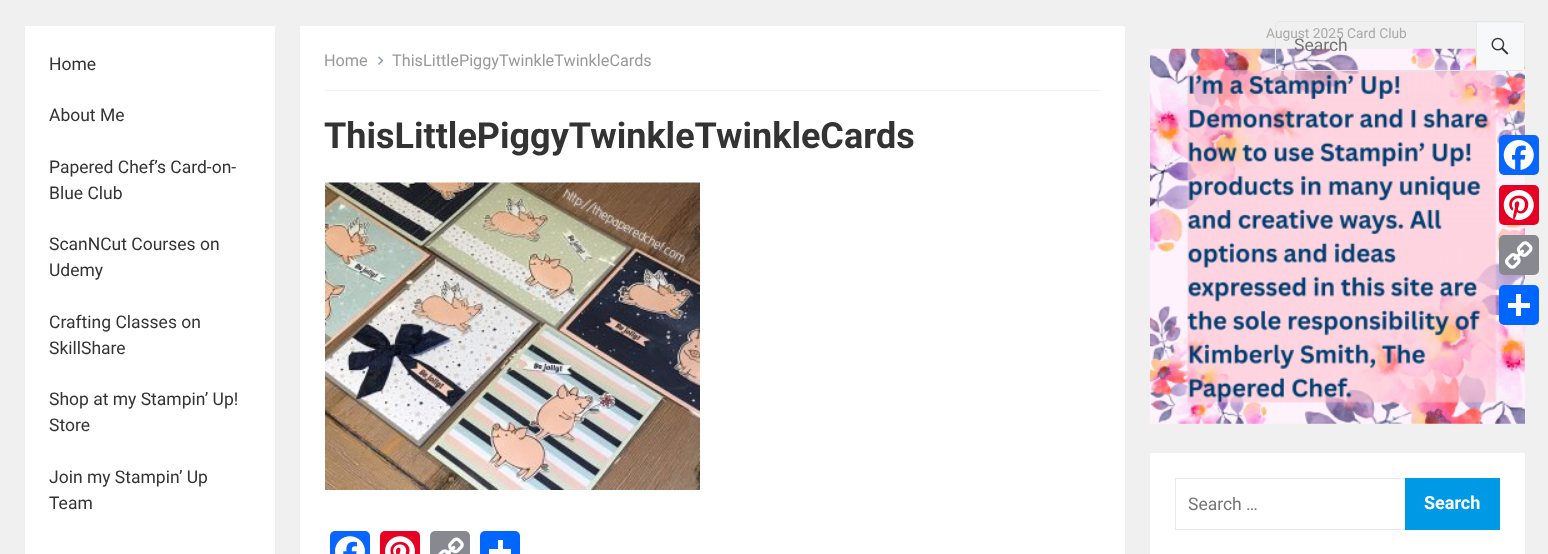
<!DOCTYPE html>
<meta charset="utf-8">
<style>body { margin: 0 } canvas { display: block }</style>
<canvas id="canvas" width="1548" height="554"></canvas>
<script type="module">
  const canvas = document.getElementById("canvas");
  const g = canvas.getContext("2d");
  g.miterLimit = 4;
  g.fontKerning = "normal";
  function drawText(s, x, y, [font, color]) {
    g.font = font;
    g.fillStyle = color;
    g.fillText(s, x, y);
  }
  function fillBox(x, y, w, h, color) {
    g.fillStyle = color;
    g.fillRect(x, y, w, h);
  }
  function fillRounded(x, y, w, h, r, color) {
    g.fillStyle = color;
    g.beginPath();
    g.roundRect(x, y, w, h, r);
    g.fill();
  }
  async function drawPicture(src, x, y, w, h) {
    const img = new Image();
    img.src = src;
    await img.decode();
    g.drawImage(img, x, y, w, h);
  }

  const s1 = ["17.5px Roboto", "#333333"];
  const s2 = ["16.25px Roboto", "#999999"];
  const s3 = ["bold 36px Roboto", "#333333"];
  const s4 = ["13.75px Roboto", "#AAAAAA"];
  const s5 = ["17.5px Roboto", "#757575"];
  const s6 = ["bold 18px Roboto", "#FFFFFF"];

  fillBox(0, 0, 1548, 554, "#F0F0F0");
  fillBox(25, 26, 250, 528, "#FFFFFF");
  drawText("Home", 49, 70, s1);
  drawText("About Me", 49, 121, s1);
  drawText("Papered Chef’s Card-on-", 49, 173, s1);
  drawText("Blue Club", 49, 199, s1);
  drawText("ScanNCut Courses on", 49, 250, s1);
  drawText("Udemy", 49, 276, s1);
  drawText("Crafting Classes on", 49, 328, s1);
  drawText("SkillShare", 49, 354, s1);
  drawText("Shop at my Stampin’ Up!", 49, 405, s1);
  drawText("Store", 49, 431, s1);
  drawText("Join my Stampin’ Up", 49, 483, s1);
  drawText("Team", 49, 509, s1);
  fillBox(300, 26, 825, 528, "#FFFFFF");
  fillBox(325, 90, 775, 1, "#F0F0F0");
  drawText("Home", 324, 66, s2);
  await drawPicture("pic1.png", 378, 56, 6, 9);
  drawText("ThisLittlePiggyTwinkleTwinkleCards", 392, 66, s2);
  drawText("ThisLittlePiggyTwinkleTwinkleCards", 324, 148, s3);
  await drawPicture("pic2.png", 325, 182, 375, 308);
  fillRounded(330, 531, 40, 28, 5, "#0866FF");
  await drawPicture("pic3.png", 335, 536, 30, 18);
  fillRounded(380, 531, 40, 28, 5, "#E60023");
  await drawPicture("pic4.png", 385, 536, 30, 18);
  fillRounded(430, 531, 40, 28, 5, "#888990");
  await drawPicture("pic5.png", 438, 537, 26, 17);
  fillRounded(480, 531, 40, 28, 5, "#0166FF");
  fillBox(498, 540, 5, 14, "#FFFFFF");
  fillBox(489, 549, 22, 5, "#FFFFFF");
  drawText("August 2025 Card Club", 1266, 38, s4);
  await drawPicture("pic6.png", 1150, 48, 375, 376);
  fillBox(1150, 453, 375, 101, "#FFFFFF");
  g.strokeStyle = "#E9E9E9";
  g.strokeRect(1175.5, 478.5, 324, 51);
  drawText("Search …", 1188, 510, s5);
  fillBox(1405, 478, 95, 52, "#0099E5");
  drawText("Search", 1424, 509, s6);
  g.beginPath();
  g.roundRect(1275.5, 21.5, 249, 49, 4.5);
  g.strokeStyle = "#E6E6E6";
  g.stroke();
  drawText("Search", 1294, 51, s5);
  fillBox(1477, 23, 47, 47, "#F7F8F9");
  fillBox(1476, 23, 1, 47, "#E9E9E9");
  await drawPicture("pic7.png", 1491, 37, 18, 18);
  fillRounded(1499, 135, 40, 40, 5, "#0866FF");
  await drawPicture("pic8.png", 1503, 140, 31, 30);
  fillRounded(1499, 185, 40, 40, 5, "#E60023");
  await drawPicture("pic9.png", 1503, 190, 31, 30);
  fillRounded(1499, 235, 40, 40, 5, "#888990");
  await drawPicture("pic10.png", 1505, 241, 28, 28);
  fillRounded(1499, 285, 40, 40, 5, "#0166FF");
  fillBox(1516, 294, 5, 22, "#FFFFFF");
  fillBox(1508, 303, 22, 5, "#FFFFFF");
</script>
